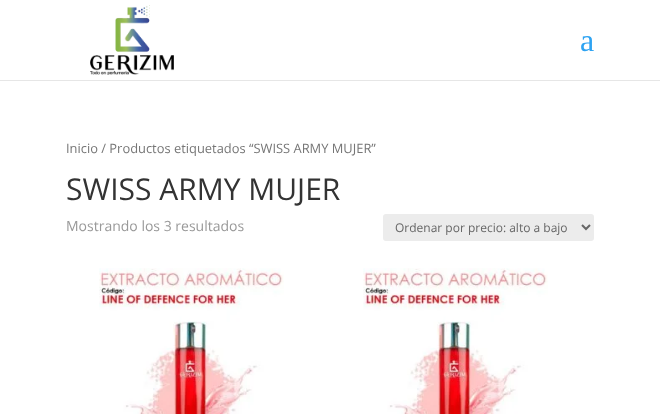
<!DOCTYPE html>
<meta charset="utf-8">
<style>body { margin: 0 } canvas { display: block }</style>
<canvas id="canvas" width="660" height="414"></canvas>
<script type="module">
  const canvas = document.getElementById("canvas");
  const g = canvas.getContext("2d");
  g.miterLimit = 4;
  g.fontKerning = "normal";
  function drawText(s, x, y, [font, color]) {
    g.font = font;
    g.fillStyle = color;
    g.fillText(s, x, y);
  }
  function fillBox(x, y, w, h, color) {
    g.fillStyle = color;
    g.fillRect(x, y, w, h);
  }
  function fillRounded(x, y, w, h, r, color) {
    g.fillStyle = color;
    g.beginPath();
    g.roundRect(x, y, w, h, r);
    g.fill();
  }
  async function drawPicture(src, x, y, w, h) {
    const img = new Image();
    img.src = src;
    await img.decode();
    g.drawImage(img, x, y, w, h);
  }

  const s1 = ["32px Liberation Serif", "#2EA3F2"];
  const s2 = ["12.9px Open Sans", "#767676"];
  const s3 = ["30px Open Sans", "#333333"];
  const s4 = ["14px Open Sans", "#999999"];
  const s5 = ["12px Open Sans", "#666666"];

  fillBox(0, 0, 660, 414, "#FFFFFF");
  fillBox(0, 80, 660, 1, "#E6E6E6");
  await drawPicture("pic1.png", 90, 5, 84, 70);
  drawText("a", 580, 51, s1);
  drawText("Inicio / Productos etiquetados “SWISS ARMY MUJER”", 66, 153, s2);
  drawText("SWISS ARMY MUJER", 66, 200, s3);
  drawText("Mostrando los 3 resultados", 66, 231, s4);
  fillRounded(383, 214, 211, 27, 3, "#ECECEC");
  g.beginPath();
  g.moveTo(582, 225);
  g.lineTo(586, 229);
  g.lineTo(590, 225);
  g.strokeStyle = "#666666";
  g.lineWidth = 2;
  g.stroke();
  drawText("Ordenar por precio: alto a bajo", 395, 232, s5);
  await drawPicture("pic2.png", 99, 268, 185, 146);
  await drawPicture("pic3.png", 363, 268, 185, 146);
</script>
